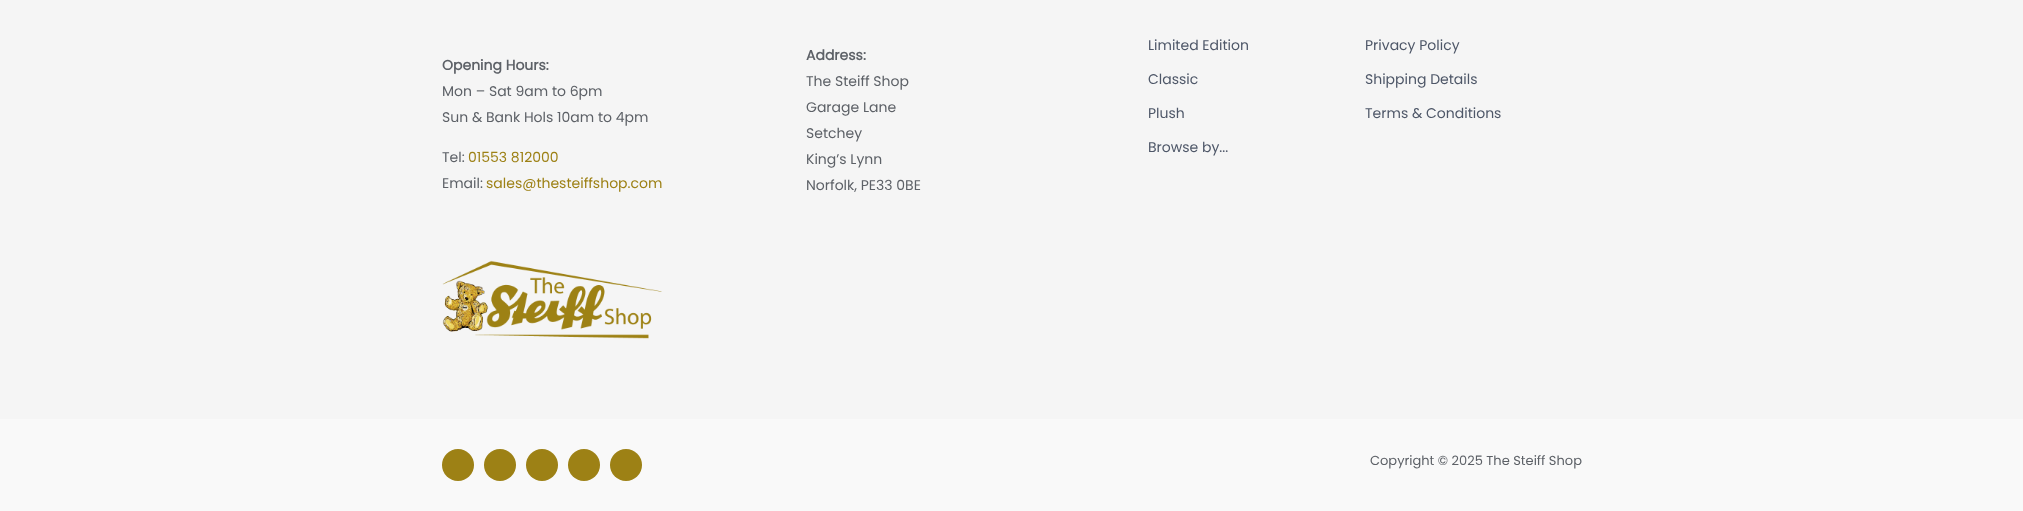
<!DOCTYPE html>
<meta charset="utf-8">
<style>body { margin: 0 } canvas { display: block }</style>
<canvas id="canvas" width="2023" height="511"></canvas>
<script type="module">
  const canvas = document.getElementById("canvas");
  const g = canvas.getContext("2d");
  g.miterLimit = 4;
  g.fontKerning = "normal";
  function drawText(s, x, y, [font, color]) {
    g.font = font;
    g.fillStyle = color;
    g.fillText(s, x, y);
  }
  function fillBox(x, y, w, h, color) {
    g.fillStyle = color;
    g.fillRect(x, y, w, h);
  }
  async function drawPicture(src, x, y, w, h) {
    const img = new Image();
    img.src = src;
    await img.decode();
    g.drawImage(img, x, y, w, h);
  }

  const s1 = ["bold 14px Poppins", "#5D6167"];
  const s2 = ["14px Poppins", "#5D6167"];
  const s3 = ["14px Poppins", "#9D8115"];
  const s4 = ["14px Poppins", "#4E5768"];
  const s5 = ["13px Poppins", "#5D6167"];

  fillBox(0, 0, 2023, 511, "#F5F5F5");
  drawText("Opening Hours:", 442, 70, s1);
  drawText("Mon – Sat 9am to 6pm", 442, 96, s2);
  drawText("Sun & Bank Hols 10am to 4pm", 442, 122, s2);
  drawText("Tel:", 442, 162, s2);
  drawText("01553 812000", 468, 162, s3);
  drawText("Email:", 442, 188, s2);
  drawText("sales@thesteiffshop.com", 486, 188, s3);
  await drawPicture("pic1.png", 442, 260, 220, 79);
  drawText("Address:", 806, 60, s1);
  drawText("The Steiff Shop", 806, 86, s2);
  drawText("Garage Lane", 806, 112, s2);
  drawText("Setchey", 806, 138, s2);
  drawText("King’s Lynn", 806, 164, s2);
  drawText("Norfolk, PE33 0BE", 806, 190, s2);
  drawText("Limited Edition", 1148, 50, s4);
  drawText("Classic", 1148, 84, s4);
  drawText("Plush", 1148, 118, s4);
  drawText("Browse by...", 1148, 152, s4);
  drawText("Privacy Policy", 1365, 50, s4);
  drawText("Shipping Details", 1365, 84, s4);
  drawText("Terms & Conditions", 1365, 118, s4);
  fillBox(0, 419, 2023, 92, "#F9F9F9");
  g.fillStyle = "#9D8115";
  g.beginPath();
  g.arc(458, 465, 16, 0, Math.PI * 2);
  g.fill();
  g.beginPath();
  g.arc(500, 465, 16, 0, Math.PI * 2);
  g.fill();
  g.beginPath();
  g.arc(542, 465, 16, 0, Math.PI * 2);
  g.fill();
  g.beginPath();
  g.arc(584, 465, 16, 0, Math.PI * 2);
  g.fill();
  g.beginPath();
  g.arc(626, 465, 16, 0, Math.PI * 2);
  g.fill();
  drawText("Copyright © 2025 The Steiff Shop", 1370, 465, s5);
</script>
